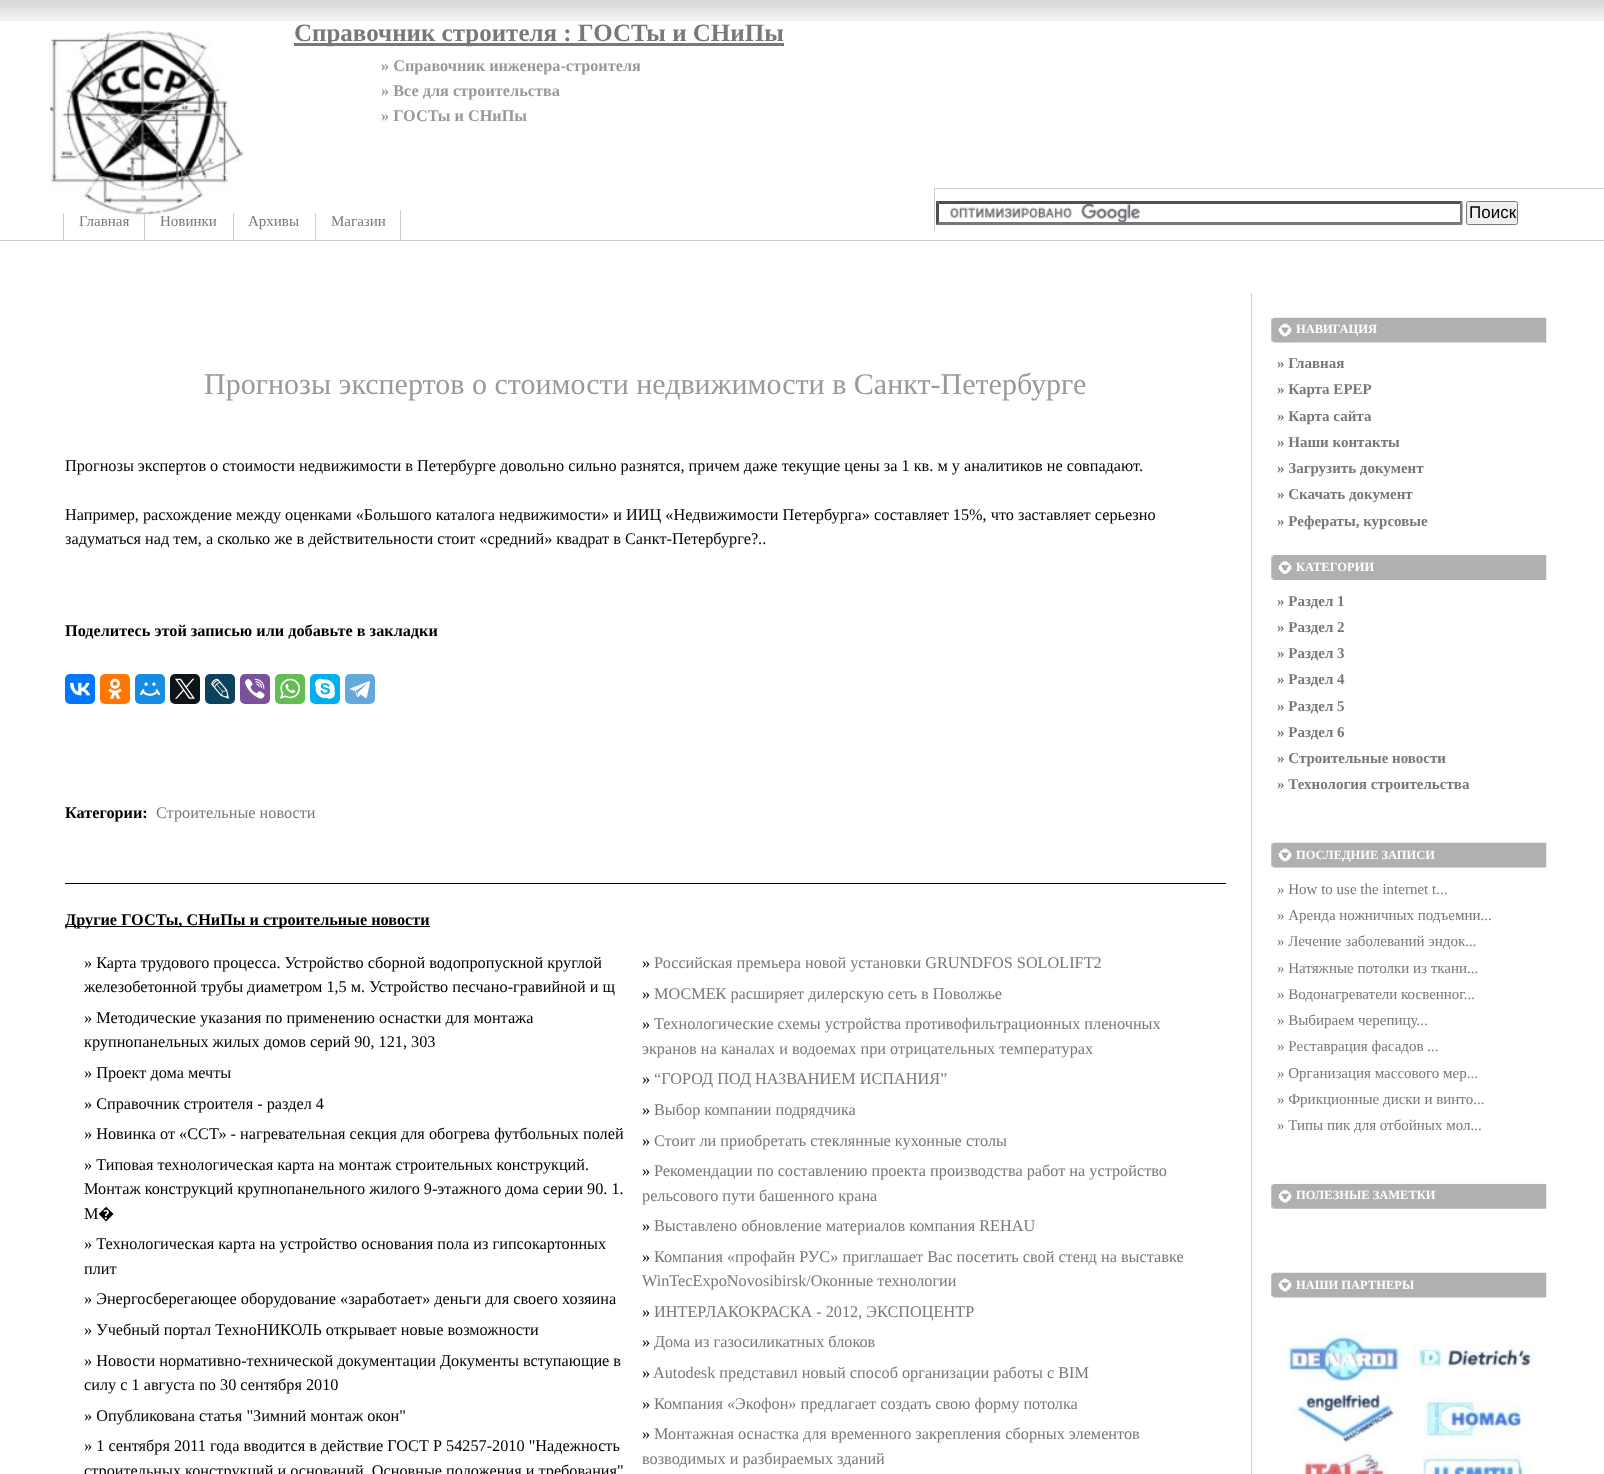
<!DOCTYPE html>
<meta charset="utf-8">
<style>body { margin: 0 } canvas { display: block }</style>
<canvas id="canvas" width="1604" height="1474"></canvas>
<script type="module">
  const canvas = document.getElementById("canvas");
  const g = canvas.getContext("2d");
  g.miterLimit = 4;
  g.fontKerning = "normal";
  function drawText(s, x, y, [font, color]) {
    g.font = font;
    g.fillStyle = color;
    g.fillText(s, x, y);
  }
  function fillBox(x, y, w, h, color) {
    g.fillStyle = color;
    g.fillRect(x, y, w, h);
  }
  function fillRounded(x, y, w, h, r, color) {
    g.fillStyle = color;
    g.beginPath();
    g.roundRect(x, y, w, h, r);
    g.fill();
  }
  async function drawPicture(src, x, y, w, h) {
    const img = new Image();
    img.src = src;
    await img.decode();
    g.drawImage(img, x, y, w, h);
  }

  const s1 = ["bold 25px Liberation Serif", "#787878"];
  const s2 = ["bold 16.25px Liberation Serif", "#999999"];
  const s3 = ["17px Liberation Sans", "#000000"];
  const s4 = ["15px Liberation Serif", "#787878"];
  const s5 = ["30px Liberation Serif", "#999999"];
  const s6 = ["16.25px Liberation Serif", "#000000"];
  const s7 = ["bold 16.25px Liberation Serif", "#000000"];
  const s8 = ["16.25px Liberation Serif", "#787878"];
  const s9 = ["16.25px Noto Sans", "#000000"];
  const s10 = ["bold 12.5px Liberation Serif", "#FFFFFF"];
  const s11 = ["bold 15px Liberation Serif", "#787878"];

  fillBox(0, 0, 1604, 1474, "#FFFFFF");
  await drawPicture("pic1.png", 0, 0, 1604, 21);
  fillBox(294, 43, 490, 3, "#787878");
  drawText("Справочник строителя : ГОСТы и СНиПы", 294, 41, s1);
  drawText("» Справочник инженера-строителя", 381, 71, s2);
  drawText("» Все для строительства", 381, 96, s2);
  drawText("» ГОСТы и СНиПы", 381, 121, s2);
  fillBox(0, 240, 1604, 1, "#CCCCCC");
  fillBox(934, 188, 670, 1, "#CCCCCC");
  fillBox(934, 188, 1, 43, "#CCCCCC");
  await drawPicture("pic2.png", 950, 204, 190, 18);
  g.fillStyle = "#4F4F4F";
  g.beginPath();
  g.moveTo(936, 201);
  g.lineTo(1462, 201);
  g.lineTo(1460, 204);
  g.lineTo(939, 204);
  g.closePath();
  g.fill();
  g.fillStyle = "#767676";
  g.beginPath();
  g.moveTo(1462.5, 201);
  g.lineTo(1462.5, 225);
  g.lineTo(1460, 222.5);
  g.lineTo(1460, 204);
  g.closePath();
  g.fill();
  g.beginPath();
  g.moveTo(1462, 225);
  g.lineTo(936, 225);
  g.lineTo(939, 222);
  g.lineTo(1460, 222);
  g.closePath();
  g.fill();
  g.fillStyle = "#4F4F4F";
  g.beginPath();
  g.moveTo(936, 225);
  g.lineTo(936, 201);
  g.lineTo(939, 204);
  g.lineTo(939, 222.5);
  g.closePath();
  g.fill();
  g.fillStyle = "#EFEFEF";
  g.beginPath();
  g.roundRect(1466.5, 201.5, 51, 23, 2);
  g.fill();
  g.strokeStyle = "#767676";
  g.stroke();
  drawText("Поиск", 1469, 218, s3);
  await drawPicture("pic3.png", 49, 29, 195, 191);
  fillBox(63, 213, 1, 27, "#CCCCCC");
  drawText("Главная", 79, 226, s4);
  fillBox(144, 213, 1, 27, "#CCCCCC");
  drawText("Новинки", 160, 226, s4);
  fillBox(233, 213, 1, 27, "#CCCCCC");
  drawText("Архивы", 248, 226, s4);
  fillBox(400, 210, 1, 30, "#CCCCCC");
  fillBox(315, 213, 1, 27, "#CCCCCC");
  drawText("Магазин", 331, 226, s4);
  fillBox(1251, 293, 1, 1181, "#CCCCCC");
  drawText("Прогнозы экспертов о стоимости недвижимости в Санкт-Петербурге", 204, 394, s5);
  drawText("Прогнозы экспертов о стоимости недвижимости в Петербурге довольно сильно разнятся, причем даже текущие цены за 1 кв. м у аналитиков не совпадают.", 65, 471, s6);
  drawText("Например, расхождение между оценками «Большого каталога недвижимости» и ИИЦ «Недвижимости Петербурга» составляет 15%, что заставляет серьезно", 65, 520, s6);
  drawText("задуматься над тем, а сколько же в действительности стоит «средний» квадрат в Санкт-Петербурге?..", 65, 544, s6);
  drawText("Поделитесь этой записью или добавьте в закладки", 65, 636, s7);
  fillRounded(65, 674, 30, 30, 5, "#0077FF");
  await drawPicture("pic4.png", 70, 682, 20, 14);
  fillRounded(100, 674, 30, 30, 5, "#FF7700");
  await drawPicture("pic5.png", 108, 678, 14, 21);
  fillRounded(135, 674, 30, 30, 5, "#168DE2");
  await drawPicture("pic6.png", 140, 682, 20, 14);
  fillRounded(170, 674, 30, 30, 5, "#0F1419");
  await drawPicture("pic7.png", 175, 678, 20, 21);
  fillRounded(205, 674, 30, 30, 5, "#0D425A");
  await drawPicture("pic8.png", 211, 678, 18, 21);
  fillRounded(240, 674, 30, 30, 5, "#7B519D");
  await drawPicture("pic9.png", 245, 678, 20, 21);
  fillRounded(275, 674, 30, 30, 5, "#65BC54");
  await drawPicture("pic10.png", 280, 678, 20, 21);
  fillRounded(310, 674, 30, 30, 5, "#00AFF0");
  await drawPicture("pic11.png", 315, 678, 20, 21);
  fillRounded(345, 674, 30, 30, 5, "#64A9DC");
  await drawPicture("pic12.png", 350, 681, 20, 17);
  drawText("Категории:", 65, 818, s7);
  drawText("Строительные новости", 156, 818, s8);
  fillBox(65, 883, 1161, 1, "#000000");
  fillBox(65, 926, 365, 1, "#000000");
  drawText("Другие ГОСТы, СНиПы и строительные новости", 65, 925, s7);
  drawText("» Карта трудового процесса. Устройство сборной водопропускной круглой", 84, 968, s6);
  drawText("железобетонной трубы диаметром 1,5 м. Устройство песчано-гравийной и щ", 84, 992, s6);
  drawText("» Методические указания по применению оснастки для монтажа", 84, 1023, s6);
  drawText("крупнопанельных жилых домов серий 90, 121, 303", 84, 1047, s6);
  drawText("» Проект дома мечты", 84, 1078, s6);
  drawText("» Справочник строителя - раздел 4", 84, 1109, s6);
  drawText("» Новинка от «ССТ» - нагревательная секция для обогрева футбольных полей", 84, 1139, s6);
  drawText("» Типовая технологическая карта на монтаж строительных конструкций.", 84, 1170, s6);
  drawText("Монтаж конструкций крупнопанельного жилого 9-этажного дома серии 90. 1.", 84, 1194, s6);
  drawText("М", 84, 1219, s6);
  drawText("�", 98, 1219, s9);
  drawText("» Технологическая карта на устройство основания пола из гипсокартонных", 84, 1249, s6);
  drawText("плит", 84, 1274, s6);
  drawText("» Энергосберегающее оборудование «заработает» деньги для своего хозяина", 84, 1304, s6);
  drawText("» Учебный портал ТехноНИКОЛЬ открывает новые возможности", 84, 1335, s6);
  drawText("» Новости нормативно-технической документации Документы вступающие в", 84, 1366, s6);
  drawText("силу с 1 августа по 30 сентября 2010", 84, 1390, s6);
  drawText("» Опубликована статья \"Зимний монтаж окон\"", 84, 1421, s6);
  drawText("» 1 сентября 2011 года вводится в действие ГОСТ Р 54257-2010 \"Надежность", 84, 1451, s6);
  drawText("строительных конструкций и оснований. Основные положения и требования\"", 84, 1476, s6);
  drawText("»", 642, 968, s6);
  drawText("Российская премьера новой установки GRUNDFOS SOLOLIFT2", 654, 968, s8);
  drawText("»", 642, 999, s6);
  drawText("МОСМЕК расширяет дилерскую сеть в Поволжье", 654, 999, s8);
  drawText("»", 642, 1029, s6);
  drawText("Технологические схемы устройства противофильтрационных пленочных", 654, 1029, s8);
  drawText("экранов на каналах и водоемах при отрицательных температурах", 642, 1054, s8);
  drawText("»", 642, 1084, s6);
  drawText("“ГОРОД ПОД НАЗВАНИЕМ ИСПАНИЯ”", 654, 1084, s8);
  drawText("»", 642, 1115, s6);
  drawText("Выбор компании подрядчика", 654, 1115, s8);
  drawText("»", 642, 1146, s6);
  drawText("Стоит ли приобретать стеклянные кухонные столы", 654, 1146, s8);
  drawText("»", 642, 1176, s6);
  drawText("Рекомендации по составлению проекта производства работ на устройство", 654, 1176, s8);
  drawText("рельсового пути башенного крана", 642, 1201, s8);
  drawText("»", 642, 1231, s6);
  drawText("Выставлено обновление материалов компания REHAU", 654, 1231, s8);
  drawText("»", 642, 1262, s6);
  drawText("Компания «профайн РУС» приглашает Вас посетить свой стенд на выставке", 654, 1262, s8);
  drawText("WinTecExpoNovosibirsk/Оконные технологии", 642, 1286, s8);
  drawText("»", 642, 1317, s6);
  drawText("ИНТЕРЛАКОКРАСКА - 2012, ЭКСПОЦЕНТР", 654, 1317, s8);
  drawText("»", 642, 1347, s6);
  drawText("Дома из газосиликатных блоков", 654, 1347, s8);
  drawText("»", 642, 1378, s6);
  drawText("Autodesk представил новый способ организации работы с BIM", 653, 1378, s8);
  drawText("»", 642, 1409, s6);
  drawText("Компания «Экофон» предлагает создать свою форму потолка", 654, 1409, s8);
  drawText("»", 642, 1439, s6);
  drawText("Монтажная оснастка для временного закрепления сборных элементов", 654, 1439, s8);
  drawText("возводимых и разбираемых зданий", 642, 1464, s8);
  await drawPicture("pic13.png", 1271, 317, 276, 26);
  drawText("НАВИГАЦИЯ", 1296, 333, s10);
  drawText("» Главная", 1277, 368, s11);
  drawText("» Карта EPEP", 1277, 394, s11);
  drawText("» Карта сайта", 1277, 421, s11);
  drawText("» Наши контакты", 1277, 447, s11);
  drawText("» Загрузить документ", 1277, 473, s11);
  drawText("» Скачать документ", 1277, 499, s11);
  drawText("» Рефераты, курсовые", 1277, 526, s11);
  await drawPicture("pic14.png", 1271, 555, 276, 25);
  drawText("КАТЕГОРИИ", 1296, 571, s10);
  drawText("» Раздел 1", 1277, 606, s11);
  drawText("» Раздел 2", 1277, 632, s11);
  drawText("» Раздел 3", 1277, 658, s11);
  drawText("» Раздел 4", 1277, 684, s11);
  drawText("» Раздел 5", 1277, 711, s11);
  drawText("» Раздел 6", 1277, 737, s11);
  drawText("» Строительные новости", 1277, 763, s11);
  drawText("» Технология строительства", 1277, 789, s11);
  await drawPicture("pic13.png", 1271, 842, 276, 26);
  drawText("ПОСЛЕДНИЕ ЗАПИСИ", 1296, 859, s10);
  drawText("» How to use the internet t...", 1277, 894, s4);
  drawText("» Аренда ножничных подъемни...", 1277, 920, s4);
  drawText("» Лечение заболеваний эндок...", 1277, 946, s4);
  drawText("» Натяжные потолки из ткани...", 1277, 973, s4);
  drawText("» Водонагреватели косвенног...", 1277, 999, s4);
  drawText("» Выбираем черепицу...", 1277, 1025, s4);
  drawText("» Реставрация фасадов ...", 1277, 1051, s4);
  drawText("» Организация массового мер...", 1277, 1078, s4);
  drawText("» Фрикционные диски и винто...", 1277, 1104, s4);
  drawText("» Типы пик для отбойных мол...", 1277, 1130, s4);
  await drawPicture("pic15.png", 1271, 1183, 276, 26);
  drawText("ПОЛЕЗНЫЕ ЗАМЕТКИ", 1296, 1199, s10);
  await drawPicture("pic13.png", 1271, 1272, 276, 26);
  drawText("НАШИ ПАРТНЕРЫ", 1296, 1289, s10);
  await drawPicture("pic16.png", 1281, 1332, 123, 50);
  await drawPicture("pic17.png", 1411, 1344, 123, 26);
  await drawPicture("pic18.png", 1294, 1391, 105, 53);
  await drawPicture("pic19.png", 1424, 1397, 99, 44);
  await drawPicture("pic20.png", 1303, 1451, 86, 23);
  await drawPicture("pic21.png", 1422, 1451, 110, 23);
</script>
